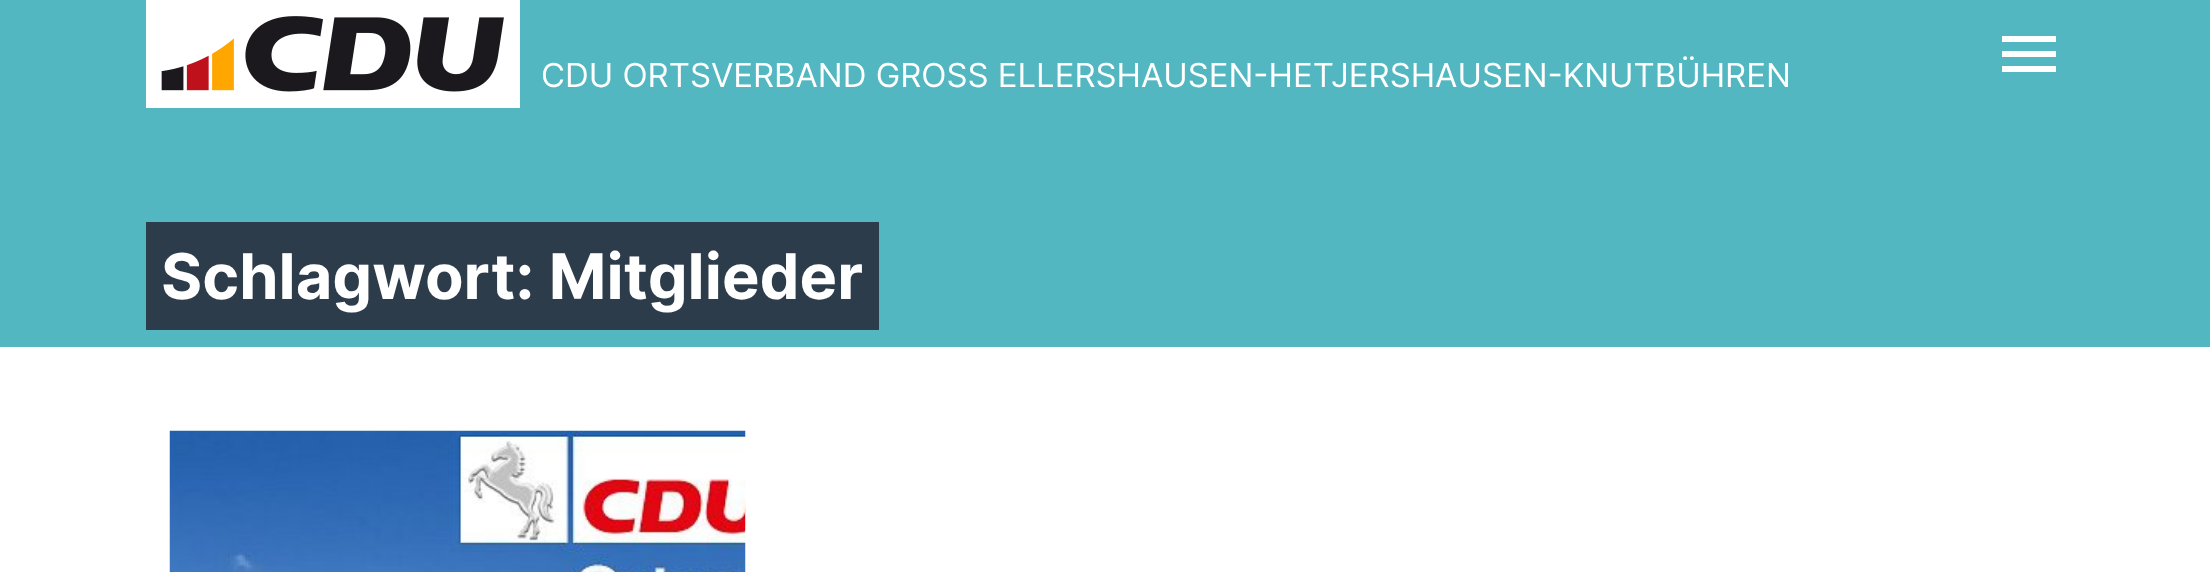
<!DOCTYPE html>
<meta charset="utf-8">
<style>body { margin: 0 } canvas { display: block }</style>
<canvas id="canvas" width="2210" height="572"></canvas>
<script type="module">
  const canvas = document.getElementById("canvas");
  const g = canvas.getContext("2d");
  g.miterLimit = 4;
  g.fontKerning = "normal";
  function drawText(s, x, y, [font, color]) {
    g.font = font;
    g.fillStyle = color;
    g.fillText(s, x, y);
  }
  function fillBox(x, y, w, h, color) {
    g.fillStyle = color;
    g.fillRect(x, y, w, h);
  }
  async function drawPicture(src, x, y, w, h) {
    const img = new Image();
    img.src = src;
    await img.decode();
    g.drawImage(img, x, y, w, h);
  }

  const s1 = ["33px Inter", "#FFFFFF"];
  const s2 = ["bold 63px Inter", "#FFFFFF"];

  fillBox(0, 0, 2210, 572, "#FFFFFF");
  fillBox(0, 0, 2210, 347, "#52B7C1");
  await drawPicture("pic1.png", 146, 0, 374, 108);
  drawText("CDU ORTSVERBAND GROSS ELLERSHAUSEN-HETJERSHAUSEN-KNUTBÜHREN", 541, 87, s1);
  g.beginPath();
  g.moveTo(2056, 72);
  g.lineTo(2002, 72);
  g.lineTo(2002, 66);
  g.lineTo(2056, 66);
  g.closePath();
  g.moveTo(2056, 57);
  g.lineTo(2002, 57);
  g.lineTo(2002, 51);
  g.lineTo(2056, 51);
  g.closePath();
  g.moveTo(2056, 42);
  g.lineTo(2002, 42);
  g.lineTo(2002, 36);
  g.lineTo(2056, 36);
  g.closePath();
  g.fill();
  fillBox(146, 222, 733, 108, "#2D3C4B");
  drawText("Schlagwort: Mitglieder", 161, 299, s2);
  await drawPicture("pic2.png", 169, 430, 577, 142);
</script>
